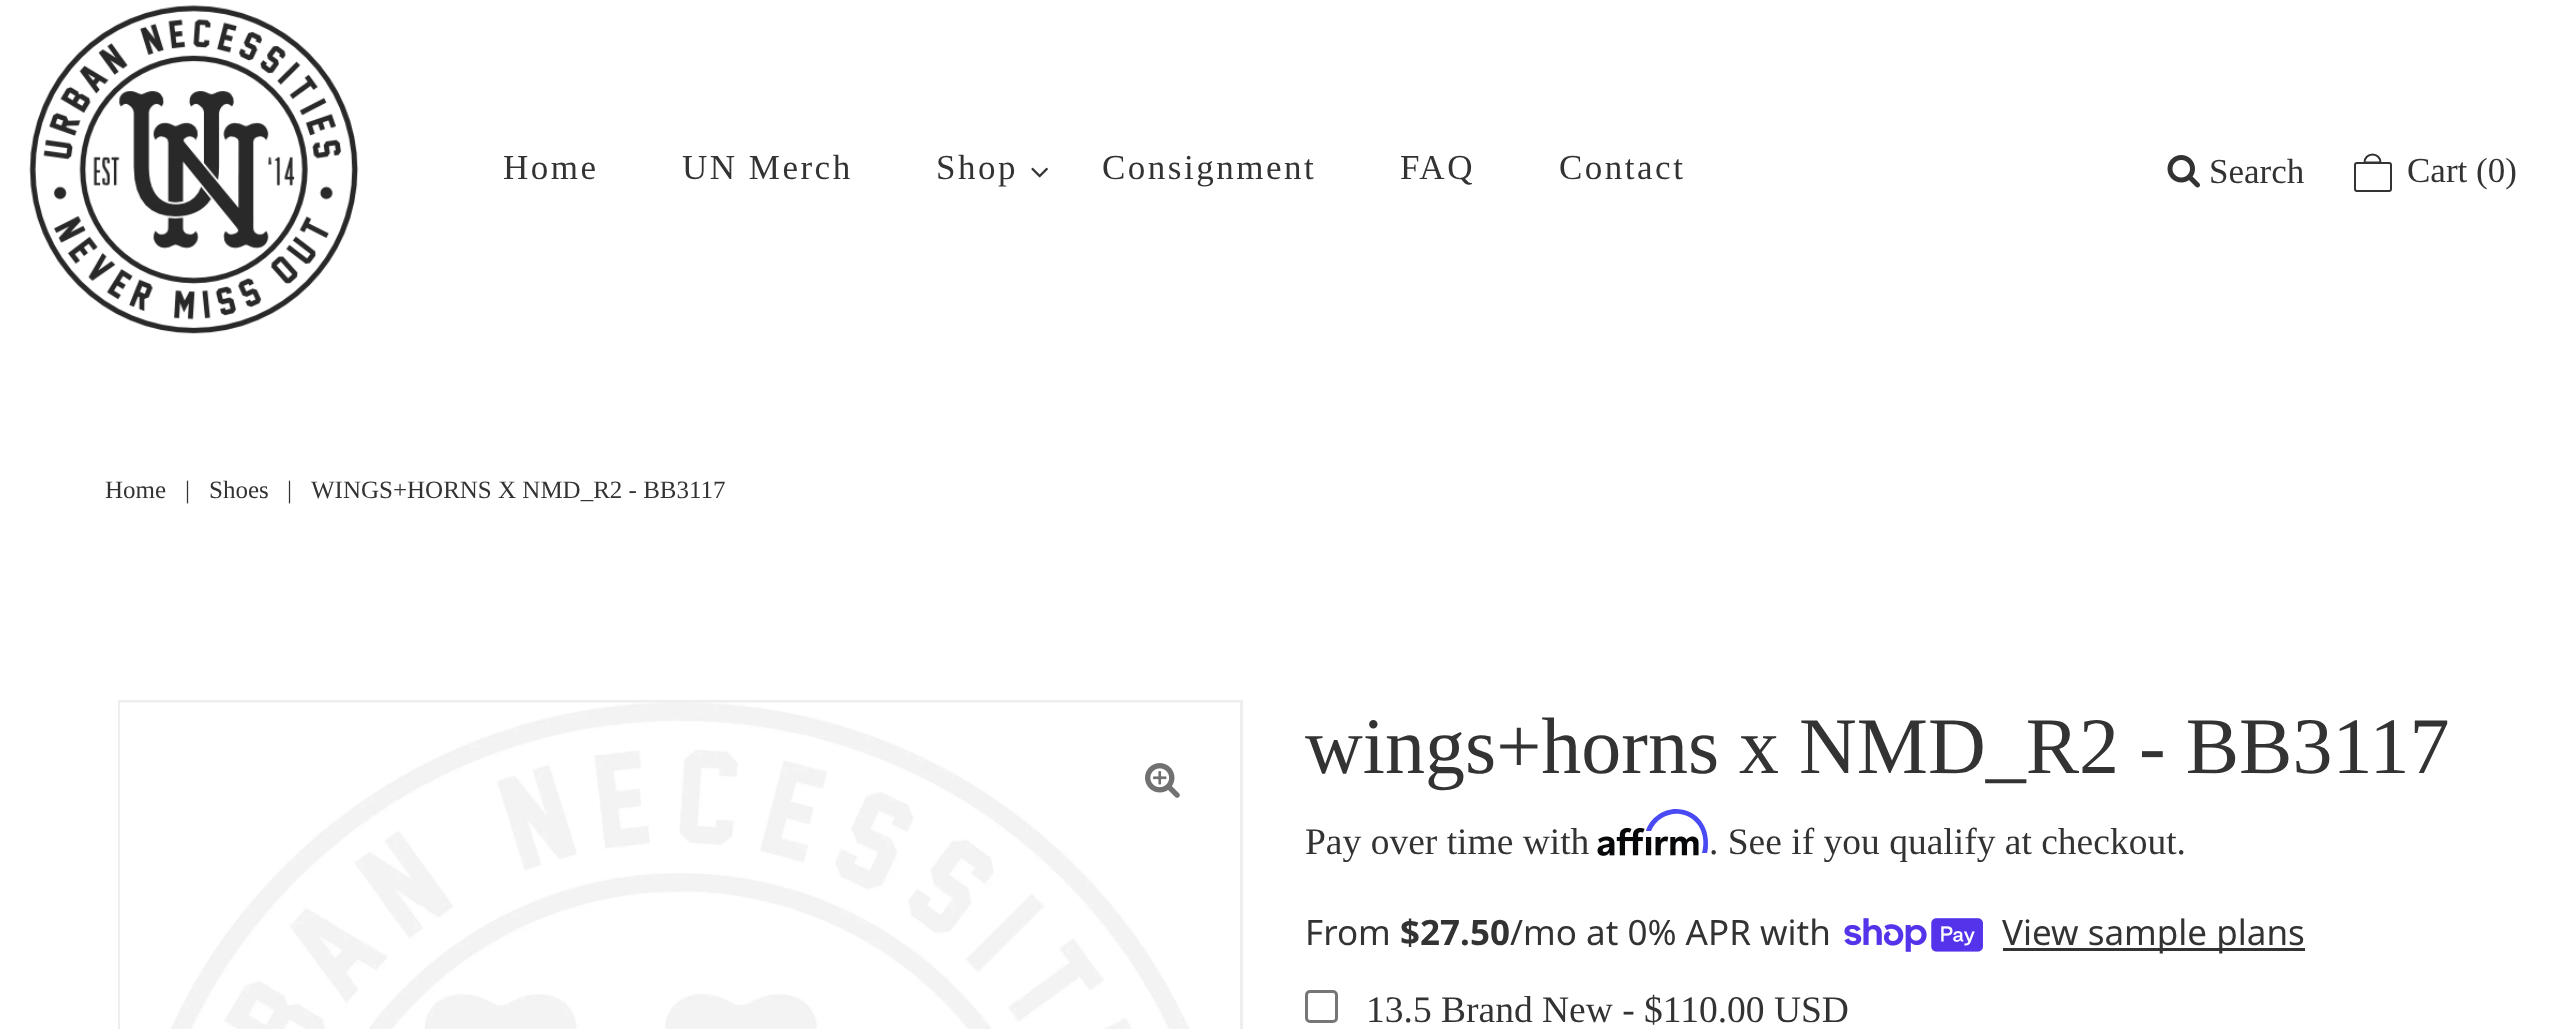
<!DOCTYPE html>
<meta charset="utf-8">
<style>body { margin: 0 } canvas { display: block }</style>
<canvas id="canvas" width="2560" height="1029"></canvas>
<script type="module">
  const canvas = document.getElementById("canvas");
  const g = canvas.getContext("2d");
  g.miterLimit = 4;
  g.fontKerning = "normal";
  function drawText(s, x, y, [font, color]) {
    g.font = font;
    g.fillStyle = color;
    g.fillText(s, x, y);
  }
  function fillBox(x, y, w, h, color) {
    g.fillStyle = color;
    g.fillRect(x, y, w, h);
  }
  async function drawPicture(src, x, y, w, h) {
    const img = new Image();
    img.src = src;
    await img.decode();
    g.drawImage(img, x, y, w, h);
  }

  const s1 = ["35px Liberation Serif", "#333333"];
  const s2 = ["25px Liberation Serif", "#333333"];
  const s3 = ["80px Liberation Serif", "#333333"];
  const s4 = ["37.5px Liberation Serif", "#333333"];
  const s5 = ["35px Noto Sans", "#333333"];
  const s6 = ["bold 35px Noto Sans", "#333333"];

  fillBox(0, 0, 2560, 1029, "#FFFFFF");
  await drawPicture("pic1.png", 29, 5, 330, 329);
  g.letterSpacing = "2.5px";
  drawText("Home", 503, 179, s1);
  drawText("UN Merch", 682, 179, s1);
  drawText("Shop", 936, 179, s1);
  await drawPicture("pic2.png", 1031, 167, 17, 11);
  drawText("Consignment", 1102, 179, s1);
  drawText("FAQ", 1400, 179, s1);
  drawText("Contact", 1559, 179, s1);
  await drawPicture("pic3.png", 2167, 155, 33, 33);
  g.letterSpacing = "0px";
  drawText("Search", 2209, 183, s1);
  g.beginPath();
  g.moveTo(2372.5, 154.5);
  g.bezierCurveTo(2377, 154.5, 2380.5, 158, 2380.5, 162.5);
  g.lineTo(2364.5, 162.5);
  g.bezierCurveTo(2364.5, 158, 2368, 154.5, 2372.5, 154.5);
  g.closePath();
  g.strokeStyle = "#333333";
  g.lineWidth = 2;
  g.stroke();
  g.beginPath();
  g.roundRect(2355, 163, 36, 28, 2);
  g.stroke();
  drawText("Cart (0)", 2407, 182, s1);
  drawText("Home", 105, 498, s2);
  drawText("|", 185, 498, s2);
  drawText("Shoes", 209, 498, s2);
  drawText("|", 287, 498, s2);
  drawText("WINGS+HORNS X NMD_R2 - BB3117", 311, 498, s2);
  g.strokeStyle = "#EEEEEE";
  g.lineWidth = 3;
  g.strokeRect(119.5, 701.5, 1122, 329);
  await drawPicture("pic4.png", 120, 702, 1120, 327);
  await drawPicture("pic5.png", 1145, 763, 35, 35);
  drawText("wings+horns x NMD_R2 - BB3117", 1305, 773, s3);
  drawText("Pay over time with", 1305, 854, s4);
  await drawPicture("pic6.png", 1597, 827, 102, 29);
  g.fillStyle = "#4A4AF4";
  g.beginPath();
  g.moveTo(1676, 809);
  g.bezierCurveTo(1663, 809, 1650, 818, 1646, 831);
  g.lineTo(1651, 831);
  g.bezierCurveTo(1653, 826, 1657, 821, 1662, 818);
  g.bezierCurveTo(1667, 815, 1674, 813, 1680, 814);
  g.bezierCurveTo(1699, 817, 1707, 836, 1702, 853);
  g.lineTo(1707, 853);
  g.bezierCurveTo(1708, 851, 1708, 845, 1708, 842);
  g.bezierCurveTo(1708, 824, 1695, 809, 1676, 809);
  g.closePath();
  g.fill();
  drawText(". See if you qualify at checkout.", 1709, 854, s4);
  drawText("From", 1305, 945, s5);
  drawText("$27.50", 1400, 945, s6);
  drawText("/mo at 0% APR with", 1510, 945, s5);
  await drawPicture("pic7.png", 1844, 918, 139, 34);
  fillBox(2003, 948, 302, 3, "#333333");
  drawText("View sample plans", 2002, 945, s5);
  g.beginPath();
  g.roundRect(1306.5, 991.5, 30, 30, 3.5);
  g.strokeStyle = "#767676";
  g.stroke();
  drawText("13.5 Brand New - $110.00 USD", 1366, 1022, s4);
</script>
